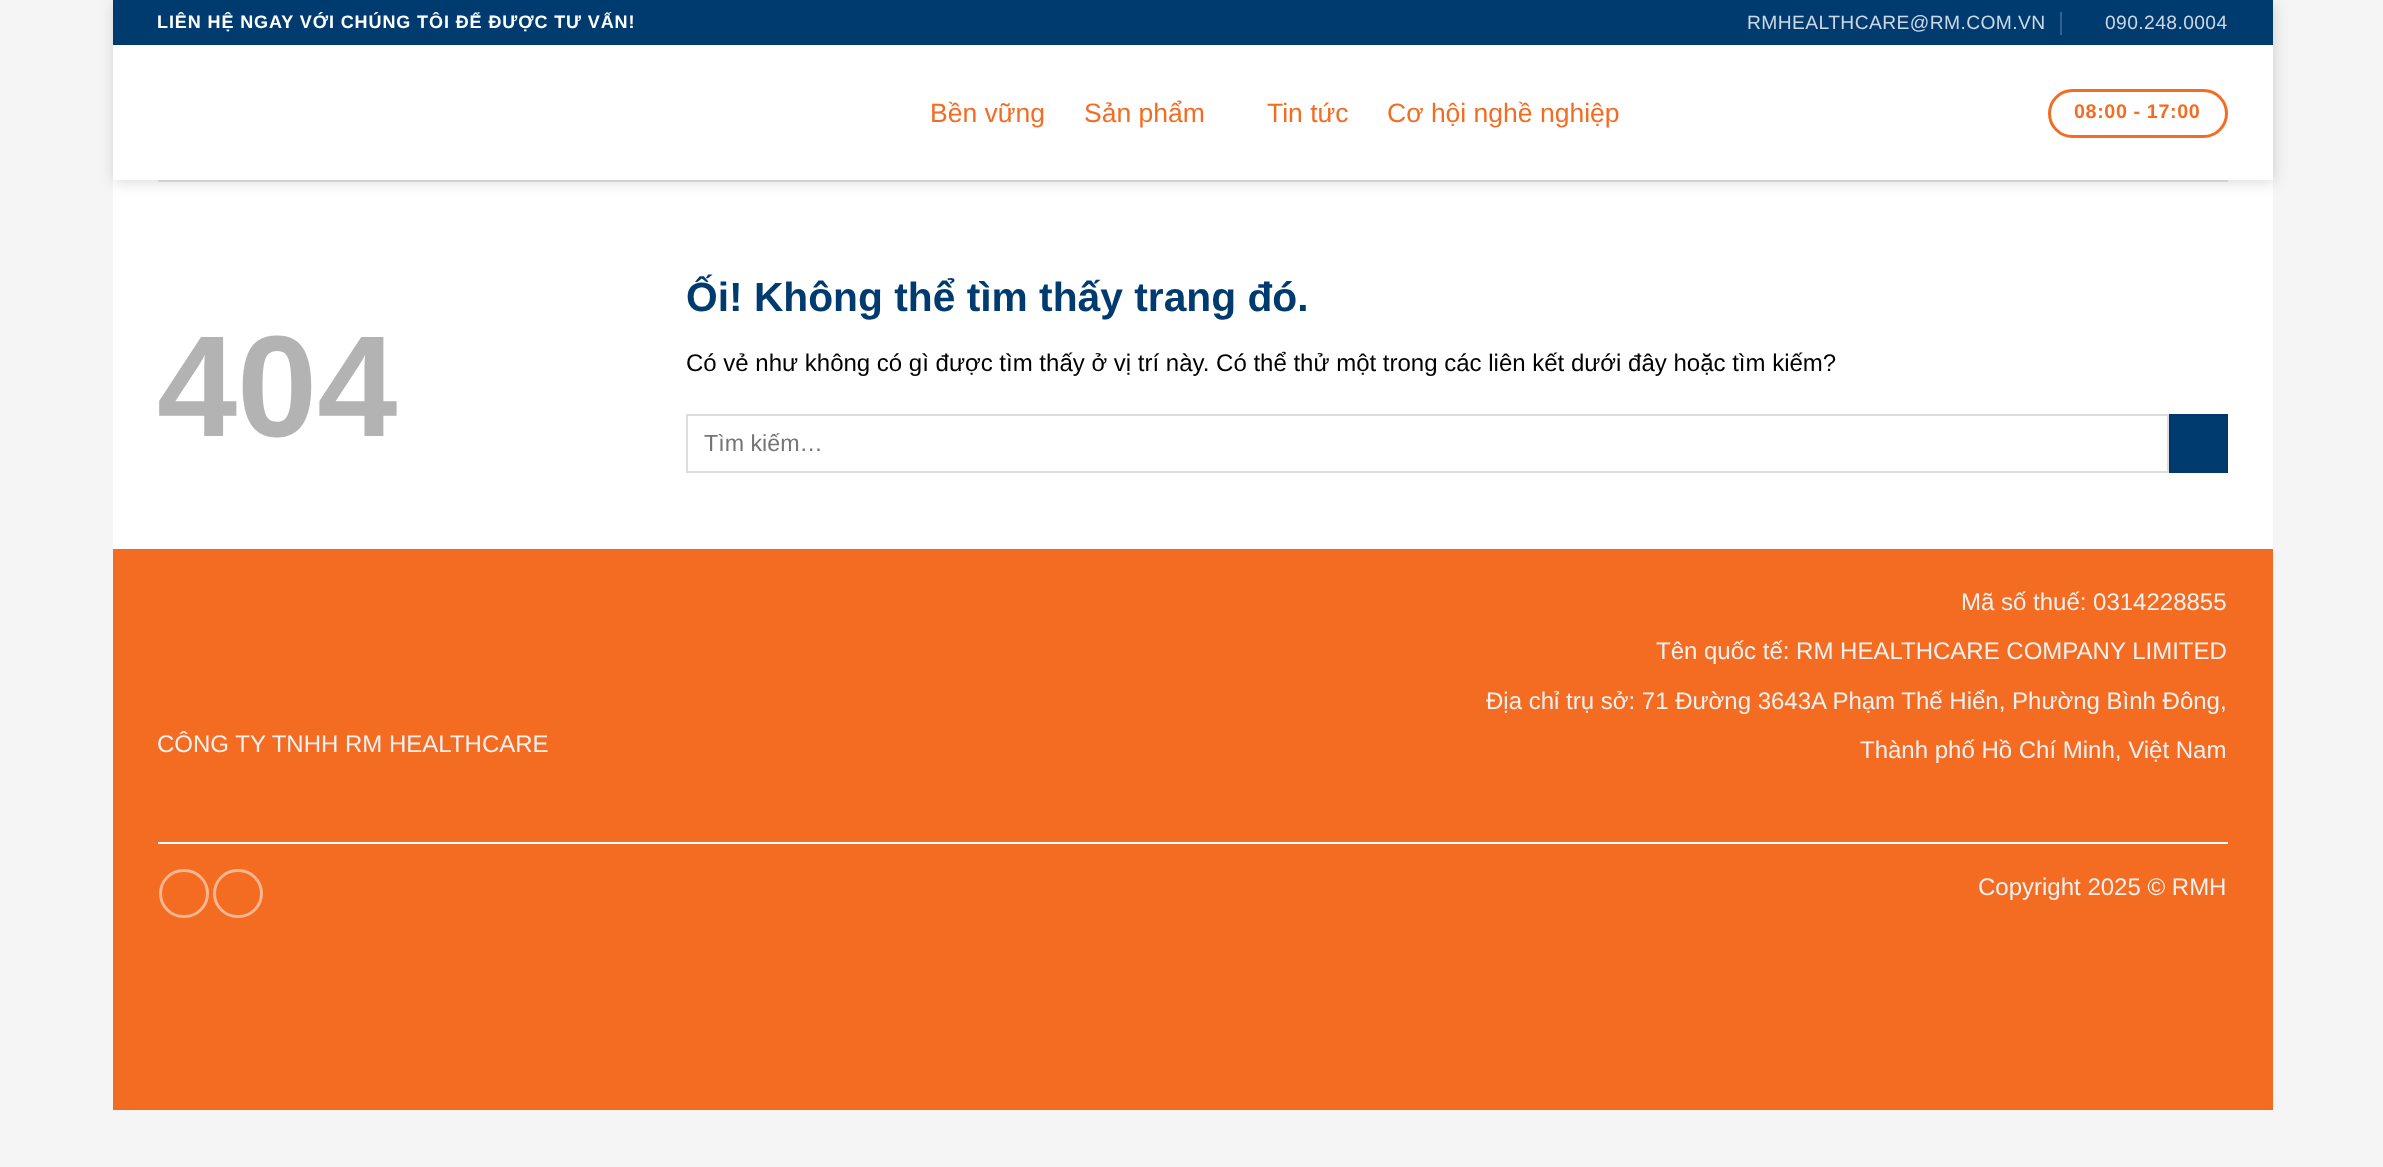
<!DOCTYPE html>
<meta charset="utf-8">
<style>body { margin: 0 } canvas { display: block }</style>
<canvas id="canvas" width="2383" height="1167"></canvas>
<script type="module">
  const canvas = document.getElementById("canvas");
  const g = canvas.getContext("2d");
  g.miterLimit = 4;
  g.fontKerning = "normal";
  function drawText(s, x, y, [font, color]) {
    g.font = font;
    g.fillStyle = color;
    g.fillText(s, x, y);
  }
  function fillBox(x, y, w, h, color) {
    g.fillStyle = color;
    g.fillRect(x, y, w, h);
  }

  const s1 = ["bold 18px Liberation Sans", "#FFFFFF"];
  const s2 = ["19.25px Liberation Sans", "#CCD8E2"];
  const s3 = ["26.5px Liberation Sans", "#F36C21"];
  const s4 = ["bold 19.75px Liberation Sans", "#F36C21"];
  const s5 = ["bold 144px Liberation Sans", "#B3B3B3"];
  const s6 = ["bold 40.75px Liberation Sans", "#003B70"];
  const s7 = ["24px Liberation Sans", "#000000"];
  const s8 = ["23.25px Liberation Sans", "#757575"];
  const s9 = ["24px Liberation Sans", "#F1F1F1"];

  fillBox(0, 0, 2383, 1167, "#F5F5F5");
  fillBox(113, 180, 2160, 369, "#FFFFFF");
  g.fillStyle = "rgba(0, 0, 0, 0.15)";
  g.filter = "blur(7.5px)";
  g.beginPath();
  g.rect(114, 2, 2160, 180);
  g.fill();
  g.filter = "none";
  fillBox(113, 0, 2160, 45, "#003B70");
  g.letterSpacing = "0.9px";
  drawText("LIÊN HỆ NGAY VỚI CHÚNG TÔI ĐỂ ĐƯỢC TƯ VẤN!", 157, 28, s1);
  g.letterSpacing = "0.4px";
  drawText("RMHEALTHCARE@RM.COM.VN", 1747, 29, s2);
  fillBox(2060, 12, 2, 23, "#33628D");
  drawText("090.248.0004", 2105, 29, s2);
  fillBox(113, 45, 2160, 135, "#FFFFFF");
  g.letterSpacing = "0px";
  drawText("Bền vững", 930, 122, s3);
  drawText("Sản phẩm", 1084, 122, s3);
  drawText("Tin tức", 1267, 122, s3);
  drawText("Cơ hội nghề nghiệp", 1387, 122, s3);
  g.beginPath();
  g.roundRect(2049.5, 90.5, 177, 46, 23);
  g.strokeStyle = "#F36C21";
  g.lineWidth = 3;
  g.stroke();
  g.letterSpacing = "0.6px";
  drawText("08:00 - 17:00", 2074, 118, s4);
  fillBox(158, 180, 2070, 2, "#D2D2D2");
  g.letterSpacing = "0px";
  drawText("404", 157, 436, s5);
  drawText("Ối! Không thể tìm thấy trang đó.", 686, 311, s6);
  drawText("Có vẻ như không có gì được tìm thấy ở vị trí này. Có thể thử một trong các liên kết dưới đây hoặc tìm kiếm?", 686, 371, s7);
  g.strokeStyle = "#DDDDDD";
  g.lineWidth = 2;
  g.strokeRect(687, 415, 1481, 57);
  drawText("Tìm kiếm…", 704, 451, s8);
  g.fillStyle = "#003B70";
  g.beginPath();
  g.rect(2170, 415, 57, 57);
  g.fill();
  g.strokeStyle = "#00386A";
  g.stroke();
  fillBox(113, 549, 2160, 561, "#F36C21");
  drawText("CÔNG TY TNHH RM HEALTHCARE", 157, 752, s9);
  drawText("Mã số thuế: 0314228855", 1961, 610, s9);
  drawText("Tên quốc tế: RM HEALTHCARE COMPANY LIMITED", 1656, 659, s9);
  drawText("Địa chỉ trụ sở: 71 Đường 3643A Phạm Thế Hiển, Phường Bình Đông,", 1486, 709, s9);
  drawText("Thành phố Hồ Chí Minh, Việt Nam", 1860, 758, s9);
  fillBox(158, 842, 2070, 2, "#FFFFFF");
  g.beginPath();
  g.roundRect(160.5, 870.5, 47, 46, 23);
  g.strokeStyle = "#F9B690";
  g.lineWidth = 3;
  g.stroke();
  g.beginPath();
  g.roundRect(214.5, 870.5, 47, 46, 23);
  g.stroke();
  drawText("Copyright 2025 © RMH", 1978, 895, s9);
</script>
